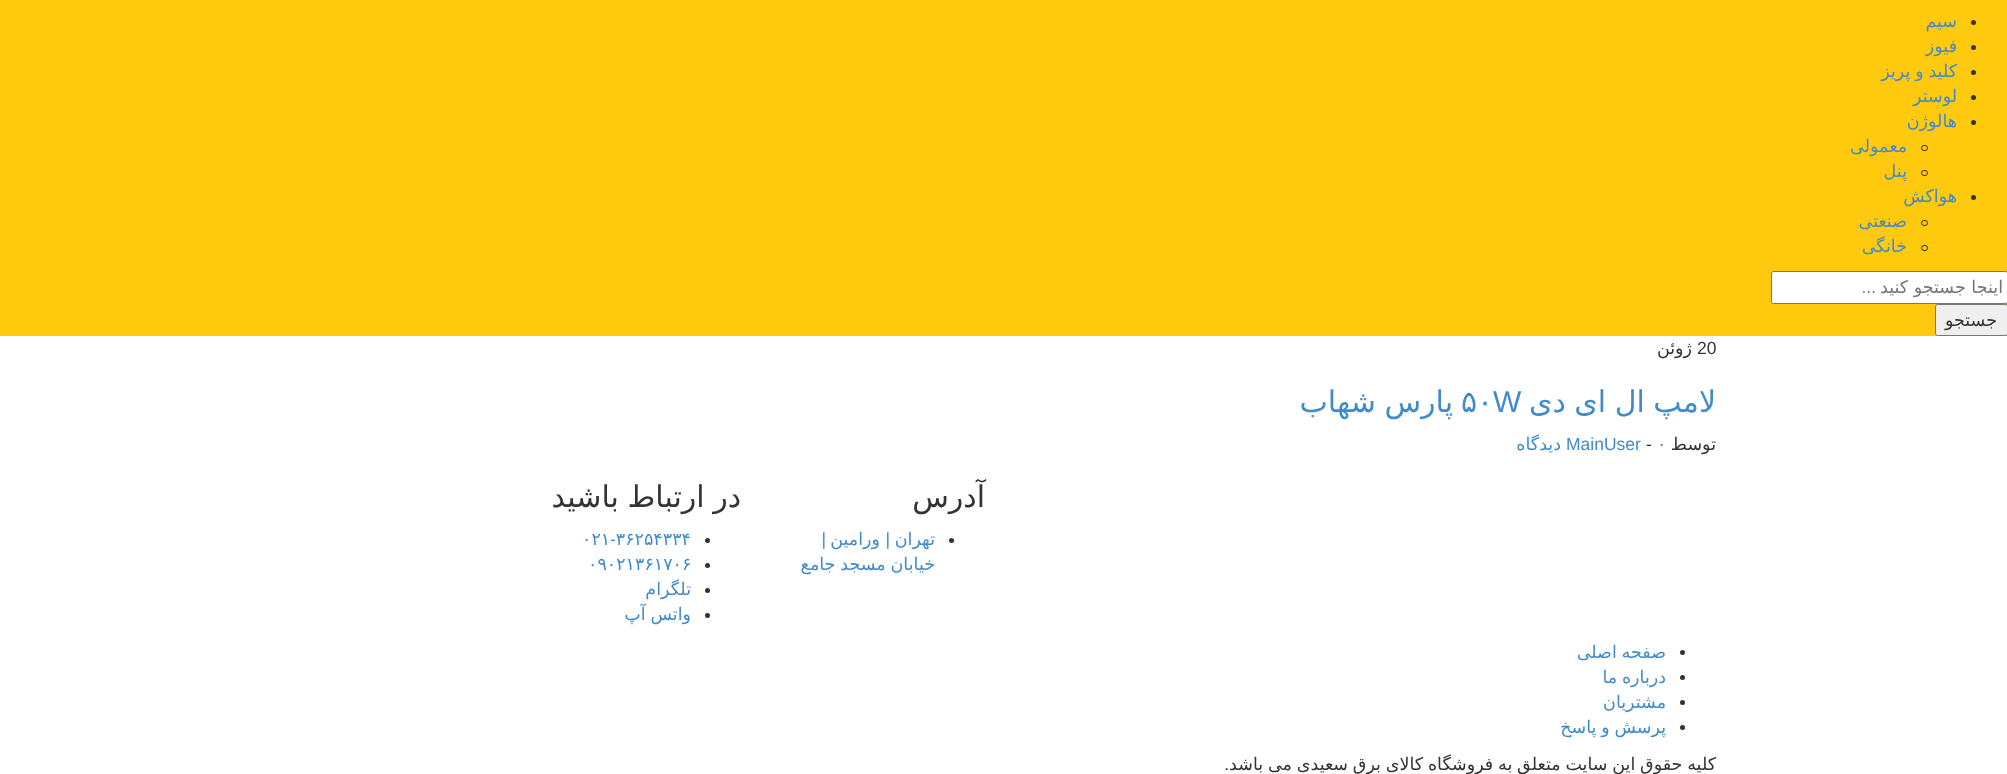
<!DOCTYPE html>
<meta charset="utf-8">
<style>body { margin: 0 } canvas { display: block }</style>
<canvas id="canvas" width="2007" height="774"></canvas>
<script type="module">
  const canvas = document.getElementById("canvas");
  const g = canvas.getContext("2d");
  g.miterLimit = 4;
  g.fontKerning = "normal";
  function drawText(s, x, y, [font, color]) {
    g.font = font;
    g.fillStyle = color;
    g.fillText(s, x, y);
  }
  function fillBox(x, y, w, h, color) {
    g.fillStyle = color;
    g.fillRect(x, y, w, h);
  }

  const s1 = ["17.5px DejaVu Sans", "#428BCA"];
  const s2 = ["17.5px DejaVu Sans", "#757575"];
  const s3 = ["17.5px Liberation Sans", "#757575"];
  const s4 = ["17.5px DejaVu Sans", "#333333"];
  const s5 = ["17.5px Liberation Sans", "#333333"];
  const s6 = ["30px DejaVu Sans", "#428BCA"];
  const s7 = ["30px Liberation Sans", "#428BCA"];
  const s8 = ["17.5px Liberation Sans", "#428BCA"];
  const s9 = ["30px DejaVu Sans", "#333333"];

  fillBox(0, 0, 2007, 774, "#FFFFFF");
  fillBox(0, 0, 2007, 336, "#FFC90E");
  g.fillStyle = "#333333";
  g.beginPath();
  g.arc(1973.5, 22.5, 2.5, 0, Math.PI * 2);
  g.fill();
  g.direction = "rtl";
  drawText("سیم", 1957, 27, s1);
  g.fillStyle = "#333333";
  g.beginPath();
  g.arc(1973.5, 47.5, 2.5, 0, Math.PI * 2);
  g.fill();
  drawText("فیوز", 1957, 52, s1);
  g.fillStyle = "#333333";
  g.beginPath();
  g.arc(1973.5, 72.5, 2.5, 0, Math.PI * 2);
  g.fill();
  g.wordSpacing = "-0.75px";
  drawText("کلید و پریز", 1957, 77, s1);
  g.fillStyle = "#333333";
  g.beginPath();
  g.arc(1973.5, 97.5, 2.5, 0, Math.PI * 2);
  g.fill();
  g.wordSpacing = "0px";
  drawText("لوستر", 1957, 102, s1);
  g.fillStyle = "#333333";
  g.beginPath();
  g.arc(1973.5, 122.5, 2.5, 0, Math.PI * 2);
  g.fill();
  drawText("هالوژن", 1957, 127, s1);
  g.beginPath();
  g.roundRect(1921.5, 145.5, 6, 5, 2.5);
  g.strokeStyle = "#333333";
  g.stroke();
  drawText("معمولی", 1907, 152, s1);
  g.beginPath();
  g.roundRect(1921.5, 170.5, 6, 5, 2.5);
  g.stroke();
  drawText("پنل", 1907, 177, s1);
  g.fillStyle = "#333333";
  g.beginPath();
  g.arc(1973.5, 197.5, 2.5, 0, Math.PI * 2);
  g.fill();
  drawText("هواکش", 1957, 202, s1);
  g.beginPath();
  g.roundRect(1921.5, 220.5, 6, 5, 2.5);
  g.stroke();
  drawText("صنعتی", 1907, 227, s1);
  g.beginPath();
  g.roundRect(1921.5, 245.5, 6, 5, 2.5);
  g.stroke();
  drawText("خانگی", 1907, 252, s1);
  g.fillStyle = "#FFFFFF";
  g.beginPath();
  g.roundRect(1771.5, 271.5, 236, 32, 2);
  g.fill();
  g.strokeStyle = "#767676";
  g.stroke();
  drawText("اینجا جستجو کنید", 2003, 293, s2);
  drawText("...", 1876, 293, s3);
  g.fillStyle = "#EFEFEF";
  g.beginPath();
  g.roundRect(1935.5, 304.5, 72, 31, 2);
  g.fill();
  g.stroke();
  drawText("جستجو", 1997, 326, s4);
  g.direction = "ltr";
  drawText("20", 1697, 354, s5);
  g.direction = "rtl";
  drawText("ژوئن", 1692, 354, s4);
  g.wordSpacing = "-1px";
  drawText("لامپ ال ای دی", 1716, 412, s6);
  g.wordSpacing = "0px";
  g.direction = "ltr";
  drawText("W", 1493, 412, s7);
  drawText("۵۰", 1461, 412, s6);
  g.wordSpacing = "-1px";
  g.direction = "rtl";
  drawText("پارس شهاب", 1453, 412, s6);
  g.wordSpacing = "0px";
  drawText("توسط", 1716, 450, s4);
  g.direction = "ltr";
  drawText("۰", 1657, 450, s1);
  drawText("-", 1646, 450, s5);
  drawText("MainUser", 1566, 450, s8);
  g.direction = "rtl";
  drawText("دیدگاه", 1561, 450, s1);
  drawText("آدرس", 985, 507, s9);
  g.beginPath();
  g.arc(951.5, 540.5, 2.5, 0, Math.PI * 2);
  g.fill();
  drawText("تهران", 935, 545, s1);
  drawText("|", 890, 545, s8);
  drawText("ورامین", 880, 545, s1);
  drawText("|", 826, 545, s8);
  g.wordSpacing = "-0.75px";
  drawText("خیابان مسجد جامع", 935, 570, s1);
  g.wordSpacing = "-1px";
  drawText("در ارتباط باشید", 741, 507, s9);
  g.beginPath();
  g.arc(707.5, 540.5, 2.5, 0, Math.PI * 2);
  g.fill();
  g.wordSpacing = "0px";
  g.direction = "ltr";
  drawText("۰۲۱ ۳۶۲۵۴۳۳۴", 582, 545, s1);
  drawText("-", 610, 545, s8);
  g.fillStyle = "#333333";
  g.beginPath();
  g.arc(707.5, 565.5, 2.5, 0, Math.PI * 2);
  g.fill();
  drawText("۰۹۰۲۱۳۶۱۷۰۶", 588, 570, s1);
  g.fillStyle = "#333333";
  g.beginPath();
  g.arc(707.5, 590.5, 2.5, 0, Math.PI * 2);
  g.fill();
  g.direction = "rtl";
  drawText("تلگرام", 691, 595, s1);
  g.fillStyle = "#333333";
  g.beginPath();
  g.arc(707.5, 615.5, 2.5, 0, Math.PI * 2);
  g.fill();
  g.wordSpacing = "-0.75px";
  drawText("واتس آپ", 691, 620, s1);
  g.fillStyle = "#333333";
  g.beginPath();
  g.arc(1682.5, 652.5, 2.5, 0, Math.PI * 2);
  g.fill();
  drawText("صفحه اصلی", 1666, 658, s1);
  g.fillStyle = "#333333";
  g.beginPath();
  g.arc(1682.5, 677.5, 2.5, 0, Math.PI * 2);
  g.fill();
  drawText("درباره ما", 1666, 683, s1);
  g.fillStyle = "#333333";
  g.beginPath();
  g.arc(1682.5, 702.5, 2.5, 0, Math.PI * 2);
  g.fill();
  g.wordSpacing = "0px";
  drawText("مشتریان", 1666, 708, s1);
  g.fillStyle = "#333333";
  g.beginPath();
  g.arc(1682.5, 727.5, 2.5, 0, Math.PI * 2);
  g.fill();
  g.wordSpacing = "-0.75px";
  drawText("پرسش و پاسخ", 1666, 733, s1);
  drawText("کلیه حقوق این سایت متعلق به فروشگاه کالای برق سعیدی می باشد", 1716, 770, s4);
  g.wordSpacing = "0px";
  drawText(".", 1229, 770, s5);
</script>
